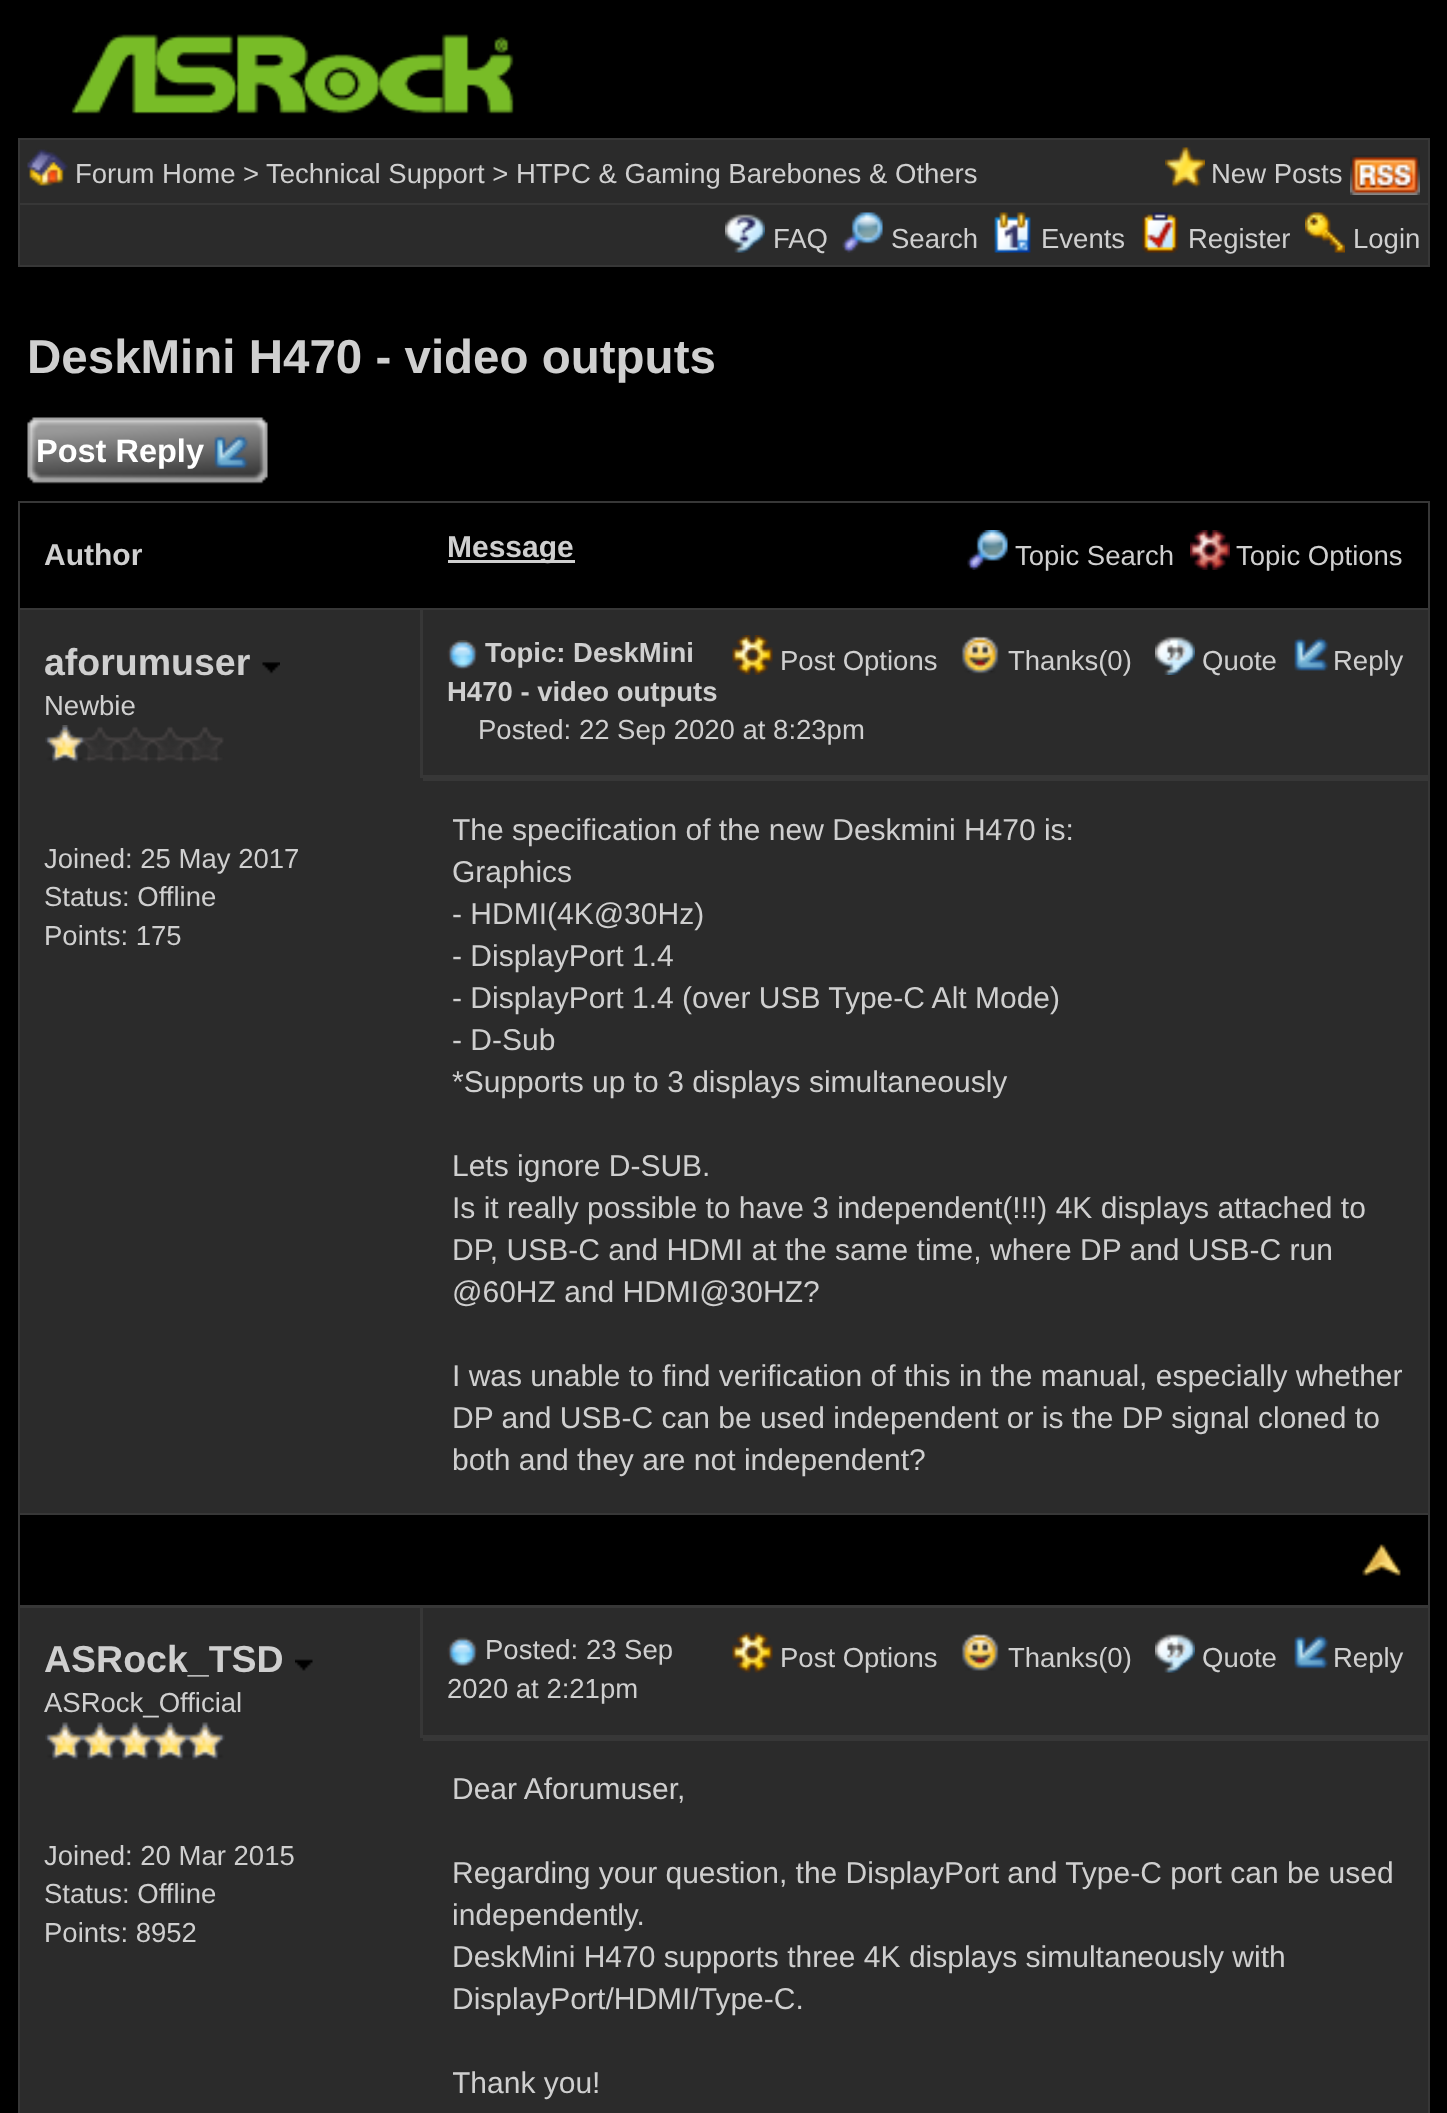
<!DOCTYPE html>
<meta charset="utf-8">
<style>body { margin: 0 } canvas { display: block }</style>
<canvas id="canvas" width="1447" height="2113"></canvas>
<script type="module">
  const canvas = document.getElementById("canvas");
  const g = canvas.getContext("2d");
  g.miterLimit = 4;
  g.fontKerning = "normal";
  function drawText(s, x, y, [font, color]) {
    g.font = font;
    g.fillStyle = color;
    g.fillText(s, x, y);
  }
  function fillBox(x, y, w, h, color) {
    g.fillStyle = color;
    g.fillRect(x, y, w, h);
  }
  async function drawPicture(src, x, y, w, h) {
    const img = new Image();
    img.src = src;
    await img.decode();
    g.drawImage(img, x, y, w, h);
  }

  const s1 = ["27.5px Liberation Sans", "#CFCFCF"];
  const s2 = ["bold 47.5px Liberation Sans", "#CFCFCF"];
  const s3 = ["bold 32.5px Liberation Sans", "#FFFFFF"];
  const s4 = ["bold 30px Liberation Sans", "#CFCFCF"];
  const s5 = ["bold 37.5px Liberation Sans", "#CFCFCF"];
  const s6 = ["bold 27.5px Liberation Sans", "#CFCFCF"];
  const s7 = ["30px Liberation Sans", "#CFCFCF"];

  fillBox(0, 0, 1447, 2113, "#000000");
  await drawPicture("pic1.png", 71, 34, 443, 80);
  fillBox(18, 138, 1412, 129, "#373737");
  fillBox(20, 140, 1408, 63, "#2B2B2B");
  await drawPicture("pic2.png", 27, 149, 41, 37);
  drawText("Forum Home >", 75, 183, s1);
  drawText("Technical Support > HTPC & Gaming Barebones & Others", 266, 183, s1);
  await drawPicture("pic3.png", 1165, 147, 40, 41);
  drawText("New Posts", 1211, 183, s1);
  await drawPicture("pic4.png", 1350, 155, 70, 40);
  fillBox(20, 205, 1408, 60, "#2B2B2B");
  await drawPicture("pic5.png", 725, 214, 40, 39);
  drawText("FAQ", 773, 248, s1);
  await drawPicture("pic6.png", 842, 212, 41, 41);
  drawText("Search", 891, 248, s1);
  await drawPicture("pic7.png", 994, 212, 37, 41);
  drawText("Events", 1041, 248, s1);
  await drawPicture("pic8.png", 1142, 212, 37, 41);
  drawText("Register", 1188, 248, s1);
  await drawPicture("pic9.png", 1305, 212, 40, 41);
  drawText("Login", 1353, 248, s1);
  drawText("DeskMini H470 - video outputs", 27, 373, s2);
  await drawPicture("pic10.png", 27, 417, 241, 67);
  drawText("Post Reply", 36, 462, s3);
  await drawPicture("pic11.png", 214, 434, 35, 35);
  fillBox(18, 501, 1412, 1612, "#373737");
  fillBox(20, 503, 1408, 105, "#000000");
  drawText("Author", 44, 565, s4);
  fillBox(448, 560, 127, 3, "#CFCFCF");
  drawText("Message", 447, 557, s4);
  await drawPicture("pic12.png", 967, 530, 41, 40);
  drawText("Topic Search", 1015, 565, s1);
  await drawPicture("pic13.png", 1190, 530, 40, 40);
  drawText("Topic Options", 1236, 565, s1);
  fillBox(20, 610, 400, 168, "#2B2B2B");
  drawText("aforumuser", 44, 675, s5);
  await drawPicture("pic14.png", 262, 662, 18, 12);
  drawText("Newbie", 44, 715, s1);
  await drawPicture("pic15.png", 45, 725, 179, 38);
  fillBox(20, 778, 1408, 735, "#2B2B2B");
  drawText("Joined: 25 May 2017", 44, 868, s1);
  drawText("Status: Offline", 44, 906, s1);
  drawText("Points: 175", 44, 945, s1);
  fillBox(423, 610, 1005, 165, "#2B2B2B");
  await drawPicture("pic16.png", 447, 640, 31, 30);
  drawText("Topic: DeskMini", 485, 662, s6);
  await drawPicture("pic17.png", 732, 635, 41, 40);
  drawText("Post Options", 780, 670, s1);
  await drawPicture("pic18.png", 961, 636, 38, 38);
  drawText("Thanks(0)", 1008, 670, s1);
  await drawPicture("pic19.png", 1155, 636, 40, 39);
  drawText("Quote", 1202, 670, s1);
  await drawPicture("pic20.png", 1294, 637, 35, 34);
  drawText("Reply", 1333, 670, s1);
  drawText("H470 - video outputs", 447, 701, s6);
  drawText("Posted: 22 Sep 2020 at 8:23pm", 478, 739, s1);
  fillBox(423, 778, 1005, 3, "#373737");
  g.save();
  g.beginPath();
  g.rect(453, 810, 955, 673);
  g.clip();
  drawText("The specification of the new Deskmini H470 is:", 452, 840, s7);
  g.restore();
  drawText("Graphics", 452, 882, s7);
  drawText("- HDMI(4K@30Hz)", 452, 924, s7);
  drawText("- DisplayPort 1.4", 452, 966, s7);
  drawText("- DisplayPort 1.4 (over USB Type-C Alt Mode)", 452, 1008, s7);
  drawText("- D-Sub", 452, 1050, s7);
  drawText("*Supports up to 3 displays simultaneously", 452, 1092, s7);
  drawText("Lets ignore D-SUB.", 452, 1176, s7);
  drawText("Is it really possible to have 3 independent(!!!) 4K displays attached to", 452, 1218, s7);
  drawText("DP, USB-C and HDMI at the same time, where DP and USB-C run", 452, 1260, s7);
  drawText("@60HZ and HDMI@30HZ?", 452, 1302, s7);
  drawText("I was unable to find verification of this in the manual, especially whether", 452, 1386, s7);
  drawText("DP and USB-C can be used independent or is the DP signal cloned to", 452, 1428, s7);
  drawText("both and they are not independent?", 452, 1470, s7);
  fillBox(20, 1515, 1408, 90, "#000000");
  await drawPicture("pic21.png", 1362, 1544, 39, 32);
  fillBox(20, 1608, 400, 130, "#2B2B2B");
  drawText("ASRock_TSD", 44, 1672, s5);
  await drawPicture("pic22.png", 295, 1659, 18, 12);
  drawText("ASRock_Official", 44, 1712, s1);
  fillBox(20, 1738, 1408, 375, "#2B2B2B");
  await drawPicture("pic23.png", 45, 1722, 180, 38);
  drawText("Joined: 20 Mar 2015", 44, 1865, s1);
  drawText("Status: Offline", 44, 1903, s1);
  drawText("Points: 8952", 44, 1942, s1);
  fillBox(423, 1608, 1005, 127, "#2B2B2B");
  await drawPicture("pic24.png", 447, 1637, 31, 30);
  drawText("Posted: 23 Sep", 485, 1659, s1);
  await drawPicture("pic25.png", 732, 1632, 41, 41);
  drawText("Post Options", 780, 1667, s1);
  await drawPicture("pic26.png", 961, 1634, 38, 37);
  drawText("Thanks(0)", 1008, 1667, s1);
  await drawPicture("pic27.png", 1155, 1634, 40, 39);
  drawText("Quote", 1202, 1667, s1);
  await drawPicture("pic28.png", 1294, 1634, 35, 35);
  drawText("Reply", 1333, 1667, s1);
  drawText("2020 at 2:21pm", 447, 1698, s1);
  fillBox(423, 1738, 1005, 3, "#373737");
  drawText("Dear Aforumuser,", 452, 1799, s7);
  drawText("Regarding your question, the DisplayPort and Type-C port can be used", 452, 1883, s7);
  drawText("independently.", 452, 1925, s7);
  drawText("DeskMini H470 supports three 4K displays simultaneously with", 452, 1967, s7);
  drawText("DisplayPort/HDMI/Type-C.", 452, 2009, s7);
  g.save();
  g.beginPath();
  g.rect(453, 1770, 955, 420);
  g.clip();
  drawText("Thank you!", 452, 2093, s7);
  g.restore();
</script>
